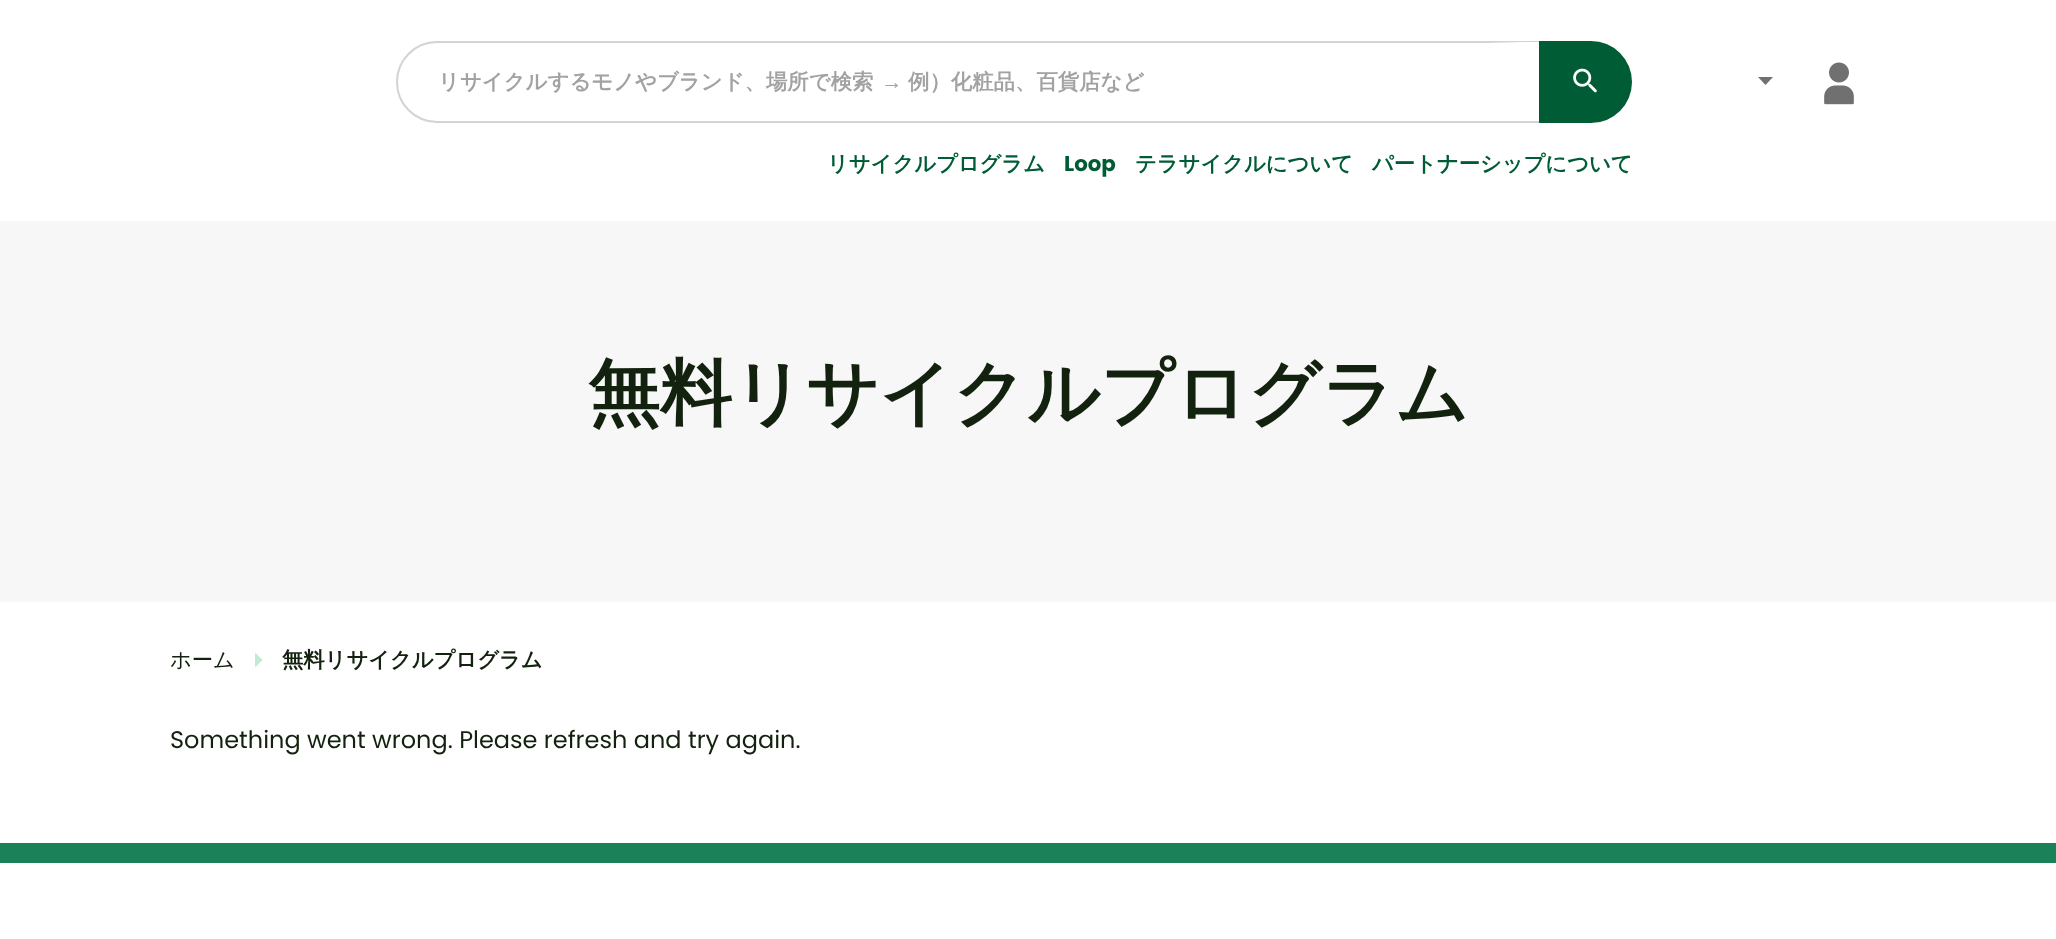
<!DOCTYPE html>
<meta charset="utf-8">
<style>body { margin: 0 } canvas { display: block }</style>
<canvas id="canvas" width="2056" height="939"></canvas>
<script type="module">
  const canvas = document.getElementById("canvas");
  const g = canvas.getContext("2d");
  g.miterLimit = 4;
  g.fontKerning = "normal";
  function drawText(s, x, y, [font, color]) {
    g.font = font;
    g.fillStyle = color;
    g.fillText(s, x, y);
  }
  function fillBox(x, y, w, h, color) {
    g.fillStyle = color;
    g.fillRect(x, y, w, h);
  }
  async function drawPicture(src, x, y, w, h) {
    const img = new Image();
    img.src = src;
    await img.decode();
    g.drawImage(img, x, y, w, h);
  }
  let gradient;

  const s1 = ["bold 21.3px WenQuanYi Zen Hei", "#A2A2A2"];
  const s2 = ["bold 21.3px Liberation Sans", "#A2A2A2"];
  const s3 = ["bold 21.3px WenQuanYi Zen Hei", "#005C35"];
  const s4 = ["bold 21.3px Poppins", "#005C35"];
  const s5 = ["bold 72px WenQuanYi Zen Hei", "#13220F"];
  const s6 = ["500 21.3px WenQuanYi Zen Hei", "#13220F"];
  const s7 = ["bold 21.3px WenQuanYi Zen Hei", "#13220F"];
  const s8 = ["24px Poppins", "#13220F"];

  fillBox(0, 0, 2056, 939, "#FFFFFF");
  g.beginPath();
  g.roundRect(397, 42, 1143, 80, [40, 0, 0, 40]);
  g.strokeStyle = "#D3D3D3";
  g.lineWidth = 2;
  g.stroke();
  gradient = g.createLinearGradient(1487, 81, 1539, 81);
  gradient.addColorStop(0, "rgba(255, 255, 255, 0)");
  gradient.addColorStop(0.7, "#FFFFFF");
  g.fillStyle = gradient;
  g.fillRect(1489, 42, 50, 1);
  g.letterSpacing = "0.1px";
  drawText("リサイクルするモノやブランド、場所で検索", 438, 89, s1);
  drawText("→", 881, 89, s2);
  drawText("例）化粧品、百貨店など", 908, 89, s1);
  g.fillStyle = "#005C35";
  g.beginPath();
  g.roundRect(1539, 41, 93, 82, [0, 41, 41, 0]);
  g.fill();
  await drawPicture("pic1.png", 1573, 68, 24, 25);
  g.letterSpacing = "0px";
  drawText("リサイクルプログラム", 827, 171, s3);
  drawText("Loop", 1064, 171, s4);
  drawText("テラサイクルについて", 1135, 171, s3);
  drawText("パートナーシップについて", 1372, 171, s3);
  g.fillStyle = "#707070";
  g.beginPath();
  g.moveTo(1758, 77);
  g.lineTo(1773, 77);
  g.lineTo(1765.5, 85);
  g.closePath();
  g.fill();
  await drawPicture("pic2.png", 1824, 62, 30, 43);
  fillBox(0, 221, 2056, 381, "#F7F7F7");
  drawText("無料リサイクルプログラム", 588, 418, s5);
  drawText("ホーム", 170, 667, s6);
  g.fillStyle = "#C0EBD5";
  g.beginPath();
  g.moveTo(255, 667.5);
  g.lineTo(255, 652.5);
  g.lineTo(262.5, 660);
  g.closePath();
  g.fill();
  drawText("無料リサイクルプログラム", 282, 667, s7);
  drawText("Something went wrong. Please refresh and try again.", 170, 748, s8);
  fillBox(0, 843, 2056, 20, "#1B8158");
</script>
